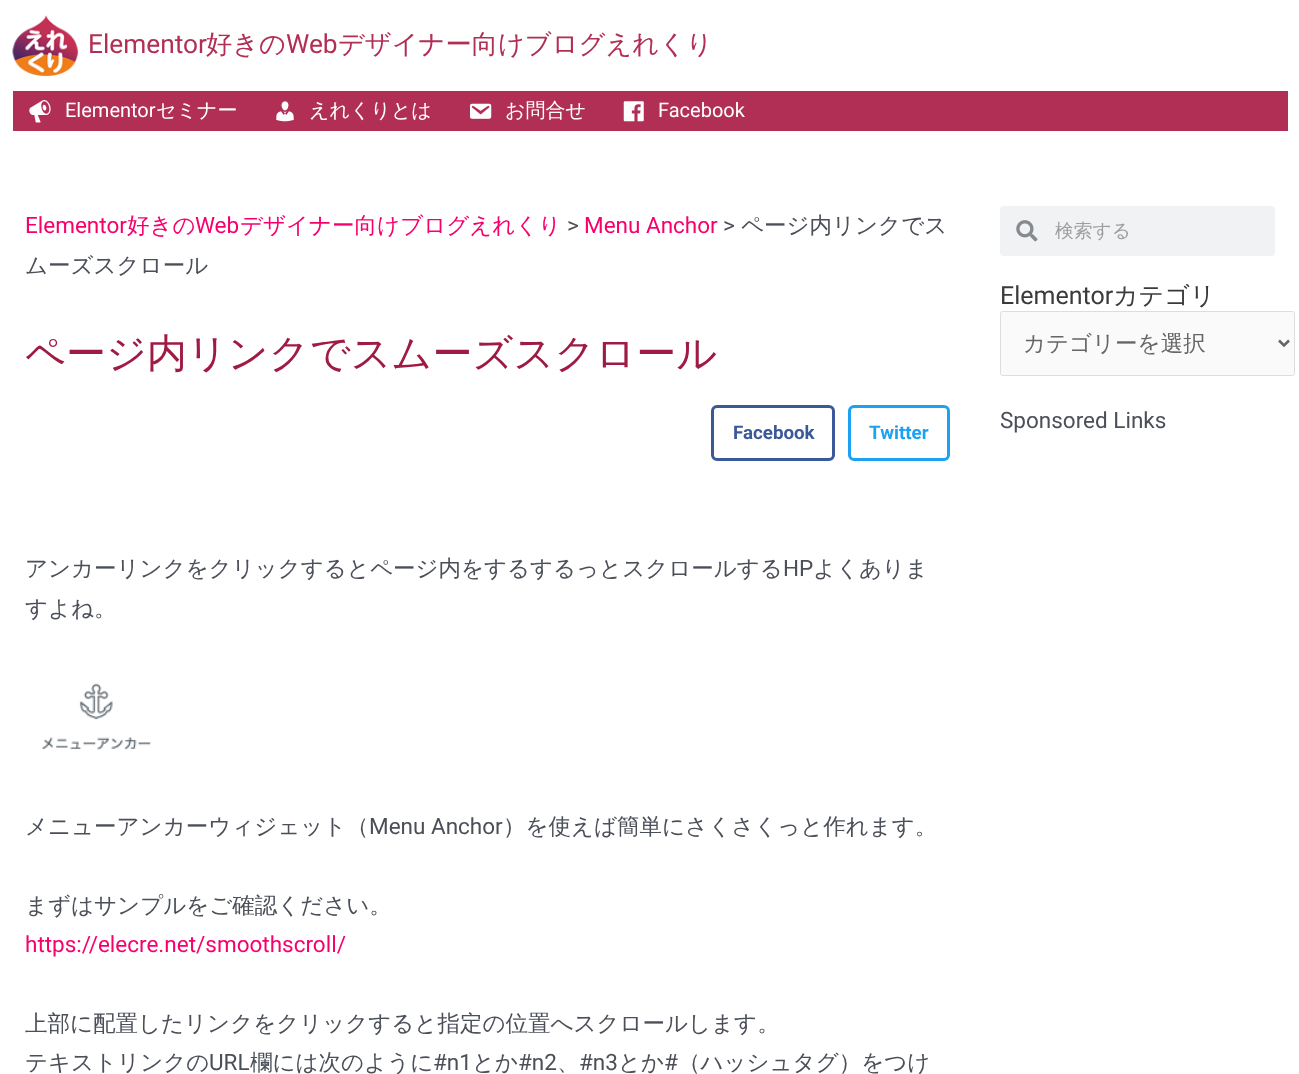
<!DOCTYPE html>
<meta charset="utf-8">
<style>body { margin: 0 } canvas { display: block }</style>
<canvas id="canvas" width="1299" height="1074"></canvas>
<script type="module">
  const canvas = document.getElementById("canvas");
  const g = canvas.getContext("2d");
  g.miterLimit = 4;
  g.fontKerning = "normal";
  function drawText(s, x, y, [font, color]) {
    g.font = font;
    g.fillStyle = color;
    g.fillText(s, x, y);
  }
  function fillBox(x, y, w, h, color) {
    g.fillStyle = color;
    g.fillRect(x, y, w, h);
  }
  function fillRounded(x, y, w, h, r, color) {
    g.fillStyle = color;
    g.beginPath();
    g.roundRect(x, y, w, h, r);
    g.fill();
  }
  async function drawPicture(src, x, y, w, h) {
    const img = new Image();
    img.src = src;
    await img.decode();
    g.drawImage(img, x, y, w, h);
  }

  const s1 = ["26.25px Roboto", "#B12F55"];
  const s2 = ["500 26.25px WenQuanYi Zen Hei", "#B12F55"];
  const s3 = ["20px Roboto", "#FFFFFF"];
  const s4 = ["500 20px WenQuanYi Zen Hei", "#FFFFFF"];
  const s5 = ["22.5px Roboto", "#F7006B"];
  const s6 = ["500 22.5px WenQuanYi Zen Hei", "#F7006B"];
  const s7 = ["22.5px Roboto", "#4B4F58"];
  const s8 = ["500 22.5px WenQuanYi Zen Hei", "#4B4F58"];
  const s9 = ["500 40px WenQuanYi Zen Hei", "#9F1B43"];
  const s10 = ["bold 18.75px Roboto", "#3B5998"];
  const s11 = ["bold 18.75px Roboto", "#1DA1F2"];
  const s12 = ["500 18.75px WenQuanYi Zen Hei", "#9E9E9E"];
  const s13 = ["25px Roboto", "#3A3A3A"];
  const s14 = ["500 25px WenQuanYi Zen Hei", "#3A3A3A"];
  const s15 = ["500 22.5px WenQuanYi Zen Hei", "#666666"];

  fillBox(0, 0, 1299, 1074, "#FFFFFF");
  await drawPicture("pic1.png", 12, 15, 67, 62);
  drawText("Elementor", 88, 53, s1);
  drawText("好きの", 206, 53, s2);
  drawText("Web", 286, 53, s1);
  drawText("デザイナー向けブログえれくり", 338, 53, s2);
  fillBox(13, 91, 1275, 40, "#B12F55");
  await drawPicture("pic2.png", 29, 100, 22, 23);
  drawText("Elementor", 65, 117, s3);
  drawText("セミナー", 156, 117, s4);
  await drawPicture("pic3.png", 276, 101, 18, 21);
  drawText("えれくりとは", 309, 117, s4);
  await drawPicture("pic4.png", 470, 103, 22, 16);
  drawText("お問合せ", 505, 117, s4);
  await drawPicture("pic5.png", 623, 101, 21, 21);
  drawText("Facebook", 658, 117, s3);
  drawText("Elementor", 25, 233, s5);
  drawText("好きの", 127, 233, s6);
  drawText("Web", 195, 233, s5);
  drawText("デザイナー向けブログえれくり", 240, 233, s6);
  drawText(">", 567, 233, s7);
  drawText("Menu Anchor", 584, 233, s5);
  drawText(">", 723, 233, s7);
  drawText("ページ内リンクでス", 741, 233, s8);
  drawText("ムーズスクロール", 25, 273, s8);
  drawText("ページ内リンクでスムーズスクロール", 25, 367, s9);
  g.beginPath();
  g.roundRect(712.5, 406.5, 121, 53, 4.5);
  g.strokeStyle = "#3B5998";
  g.lineWidth = 3;
  g.stroke();
  drawText("Facebook", 733, 439, s10);
  g.beginPath();
  g.roundRect(849.5, 406.5, 99, 53, 4.5);
  g.strokeStyle = "#1DA1F2";
  g.stroke();
  drawText("Twitter", 869, 439, s11);
  drawText("アンカーリンクをクリックするとページ内をするするっとスクロールする", 25, 576, s8);
  drawText("HP", 783, 576, s7);
  drawText("よくありま", 813, 576, s8);
  drawText("すよね。", 25, 616, s8);
  await drawPicture("pic6.png", 42, 683, 110, 67);
  drawText("メニューアンカーウィジェット（", 25, 834, s8);
  drawText("Menu Anchor", 369, 834, s7);
  drawText("）を使えば簡単にさくさくっと作れます。", 503, 834, s8);
  drawText("まずはサンプルをご確認ください。", 25, 913, s8);
  drawText("https://elecre.net/smoothscroll/", 25, 952, s5);
  drawText("上部に配置したリンクをクリックすると指定の位置へスクロールします。", 25, 1031, s8);
  drawText("テキストリンクの", 25, 1070, s8);
  drawText("URL", 209, 1070, s7);
  drawText("欄には次のように", 250, 1070, s8);
  drawText("#n1", 433, 1070, s7);
  drawText("とか", 472, 1070, s8);
  drawText("#n2", 518, 1070, s7);
  drawText("#n3", 579, 1070, s7);
  drawText("とか", 618, 1070, s8);
  drawText("#", 664, 1070, s7);
  drawText("（ハッシュタグ）をつけ", 678, 1070, s8);
  drawText("、", 557, 1070, s8);
  fillRounded(1000, 206, 275, 50, 4, "#F1F2F3");
  await drawPicture("pic7.png", 1016, 220, 22, 22);
  drawText("検索する", 1055, 237, s12);
  drawText("Elementor", 1000, 304, s13);
  drawText("カテゴリ", 1113, 304, s14);
  g.fillStyle = "#FAFAFA";
  g.beginPath();
  g.roundRect(1000.5, 311.5, 294, 64, 2);
  g.fill();
  g.strokeStyle = "#DDDDDD";
  g.lineWidth = 1;
  g.stroke();
  g.beginPath();
  g.moveTo(1279, 340.5);
  g.lineTo(1284, 345.5);
  g.lineTo(1289, 340.5);
  g.strokeStyle = "#666666";
  g.lineWidth = 2.5;
  g.stroke();
  drawText("カテゴリーを選択", 1023, 351, s15);
  drawText("Sponsored Links", 1000, 428, s7);
</script>
